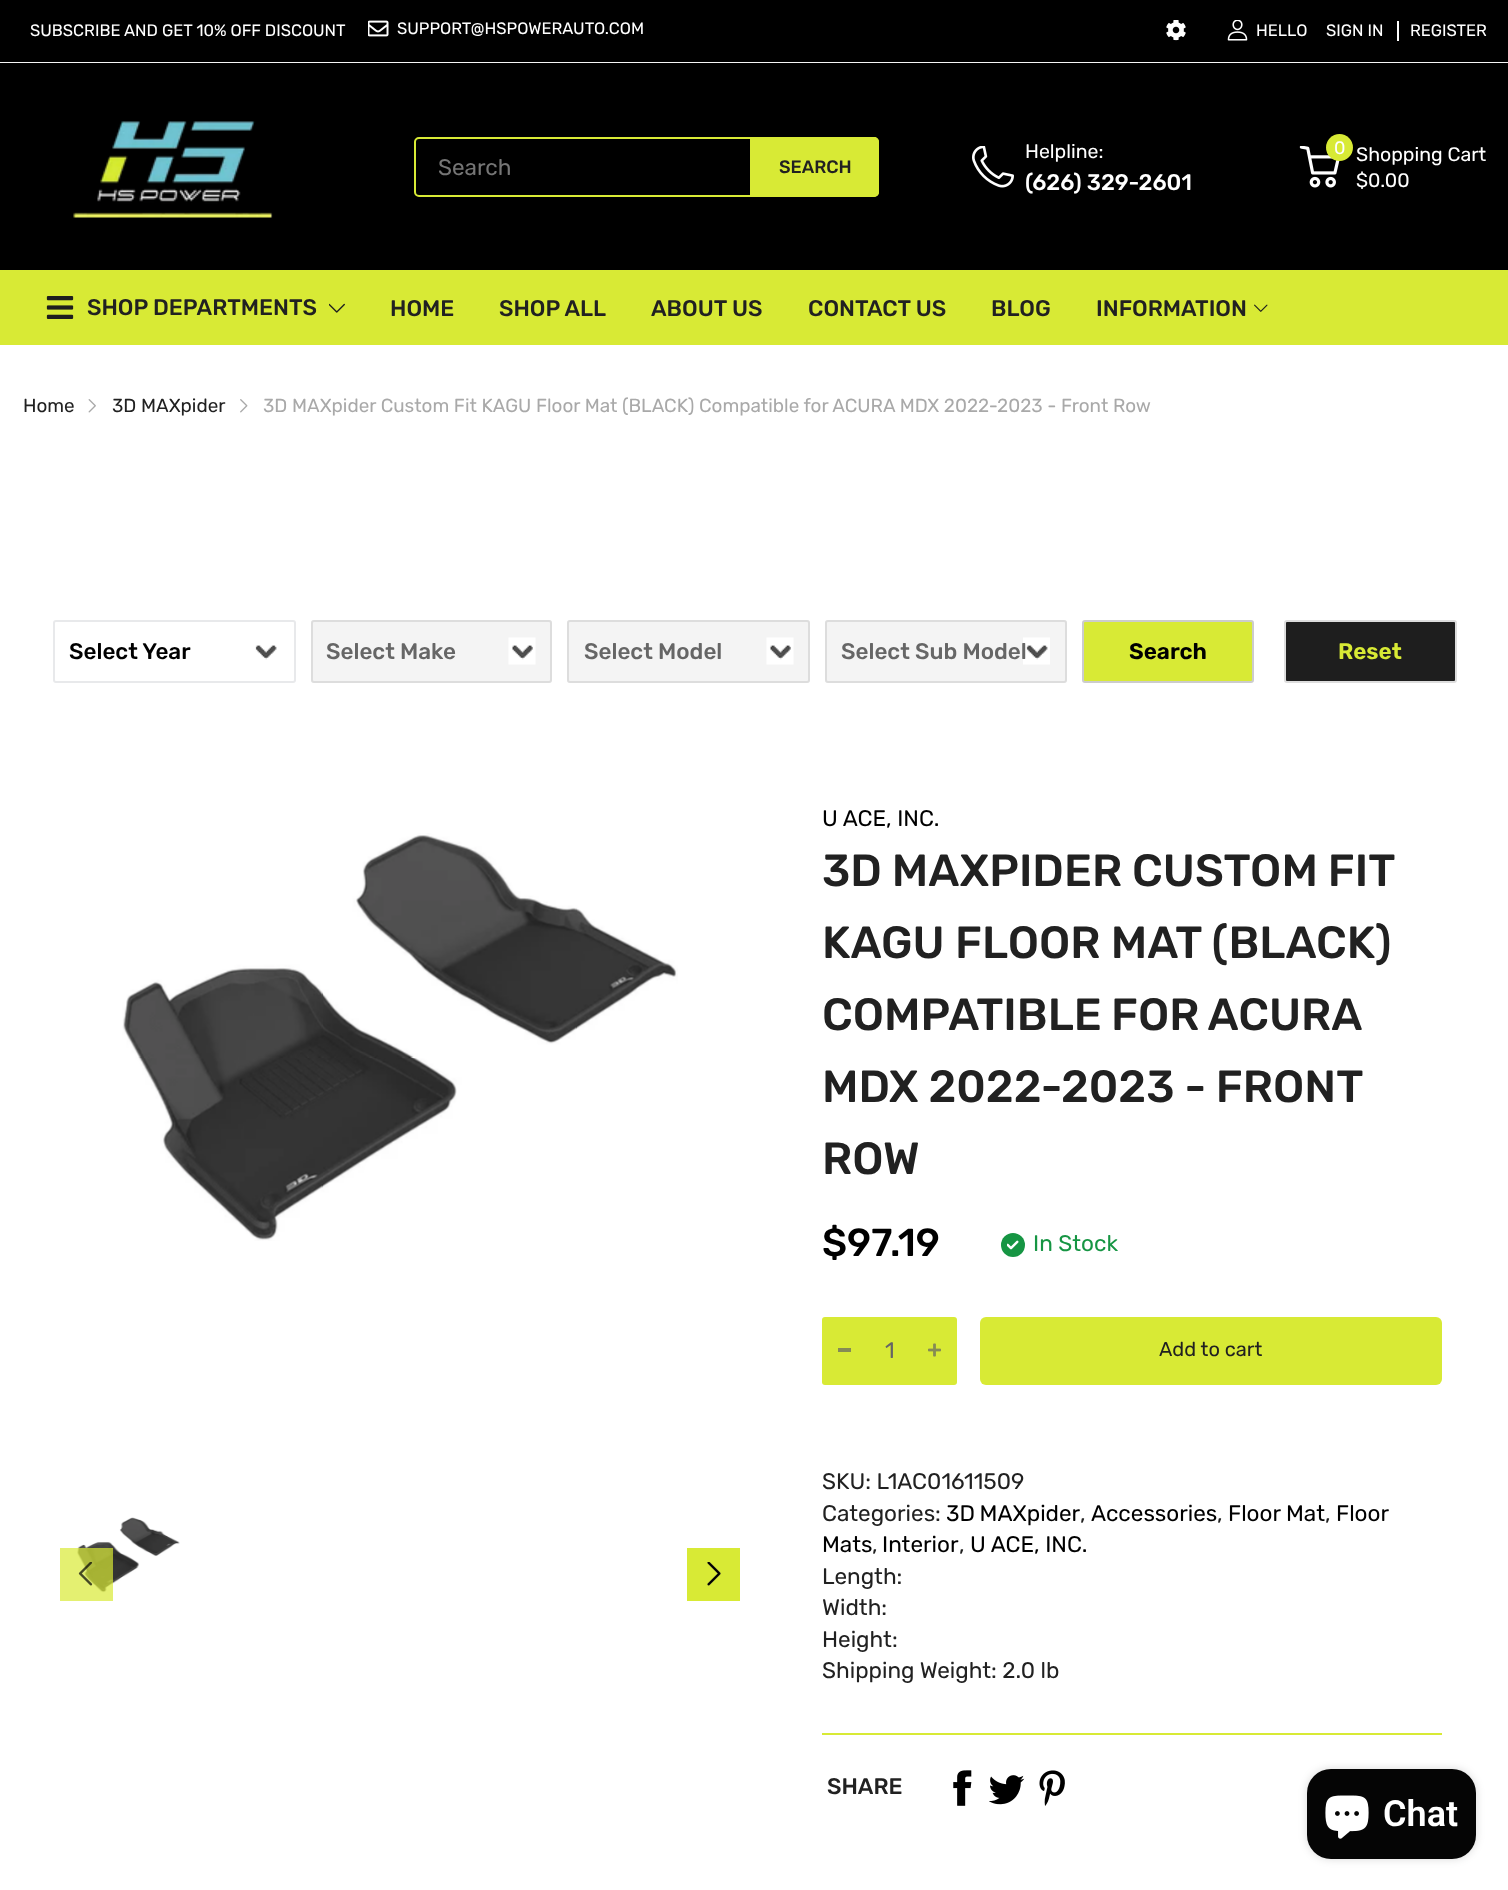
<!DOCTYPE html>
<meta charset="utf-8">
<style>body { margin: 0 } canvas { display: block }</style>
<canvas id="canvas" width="1508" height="1890"></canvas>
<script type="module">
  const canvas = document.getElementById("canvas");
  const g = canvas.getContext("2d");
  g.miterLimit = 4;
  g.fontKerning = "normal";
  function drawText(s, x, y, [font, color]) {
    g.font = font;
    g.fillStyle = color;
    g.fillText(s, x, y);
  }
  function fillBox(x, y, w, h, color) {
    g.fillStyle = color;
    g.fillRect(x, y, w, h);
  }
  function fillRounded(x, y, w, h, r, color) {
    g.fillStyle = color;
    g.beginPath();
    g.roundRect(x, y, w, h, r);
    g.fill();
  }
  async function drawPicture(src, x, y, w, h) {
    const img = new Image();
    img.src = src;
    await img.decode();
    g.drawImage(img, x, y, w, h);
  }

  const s1 = ["16.5px Rubik", "#FFFFFF"];
  const s2 = ["22.5px Rubik", "#757575"];
  const s3 = ["500 18px Rubik", "#212121"];
  const s4 = ["19.5px Rubik", "#FFFFFF"];
  const s5 = ["500 22.5px Rubik", "#FFFFFF"];
  const s6 = ["18px Rubik", "#FFFFFF"];
  const s7 = ["500 22.5px Rubik", "#212121"];
  const s8 = ["18.9px Rubik", "#212121"];
  const s9 = ["18.9px Rubik", "#A9A9A9"];
  const s10 = ["500 22.5px Rubik", "#000000"];
  const s11 = ["500 22.5px Rubik", "#666666"];
  const s12 = ["600 22.5px Rubik", "#000000"];
  const s13 = ["600 22.5px Rubik", "#D8EA35"];
  const s14 = ["22.5px Rubik", "#000000"];
  const s15 = ["500 45px Rubik", "#212121"];
  const s16 = ["500 39px Rubik", "#000000"];
  const s17 = ["22.5px Rubik", "#169543"];
  const s18 = ["22.5px Rubik", "#666666"];
  const s19 = ["20px Rubik", "#212121"];
  const s20 = ["22.5px Rubik", "#212121"];
  const s21 = ["600 36px Roboto", "#FFFFFF"];

  fillBox(0, 0, 1508, 1890, "#FFFFFF");
  fillBox(0, 0, 1508, 62, "#000000");
  fillBox(0, 62, 1508, 1, "#F5F5F5");
  drawText("SUBSCRIBE AND GET 10% OFF DISCOUNT", 30, 36, s1);
  await drawPicture("pic1.png", 368, 20, 21, 17);
  drawText("SUPPORT@HSPOWERAUTO.COM", 397, 34, s1);
  await drawPicture("pic2.png", 1166, 20, 20, 21);
  await drawPicture("pic3.png", 1227, 20, 21, 21);
  drawText("HELLO", 1256, 36, s1);
  drawText("SIGN IN", 1326, 36, s1);
  drawText("REGISTER", 1410, 36, s1);
  fillBox(1397, 21, 2, 20, "#FFFFFF");
  fillBox(0, 63, 1508, 207, "#000000");
  await drawPicture("pic4.png", 73, 121, 200, 97);
  g.beginPath();
  g.roundRect(415, 138, 463, 58, 4);
  g.strokeStyle = "#D8EA35";
  g.lineWidth = 2;
  g.stroke();
  drawText("Search", 438, 175, s2);
  g.fillStyle = "#D8EA35";
  g.beginPath();
  g.roundRect(750, 137, 129, 60, [0, 5, 5, 0]);
  g.fill();
  drawText("SEARCH", 779, 173, s3);
  await drawPicture("pic5.png", 972, 146, 42, 42);
  drawText("Helpline:", 1025, 158, s4);
  drawText("(626) 329-2601", 1025, 190, s5);
  await drawPicture("pic6.png", 1299, 146, 41, 42);
  g.fillStyle = "#D8EA35";
  g.beginPath();
  g.arc(1339.5, 147.5, 13.5, 0, Math.PI * 2);
  g.fill();
  drawText("0", 1334, 154, s6);
  drawText("Shopping Cart", 1356, 161, s4);
  drawText("$0.00", 1356, 187, s4);
  fillBox(0, 270, 1508, 75, "#D8EA35");
  await drawPicture("pic7.png", 46, 296, 28, 23);
  drawText("SHOP DEPARTMENTS", 87, 315, s7);
  await drawPicture("pic8.png", 329, 303, 16, 10);
  drawText("HOME", 390, 316, s7);
  drawText("SHOP ALL", 499, 316, s7);
  drawText("ABOUT US", 651, 316, s7);
  drawText("CONTACT US", 808, 316, s7);
  drawText("BLOG", 991, 316, s7);
  drawText("INFORMATION", 1096, 316, s7);
  await drawPicture("pic9.png", 1254, 304, 14, 8);
  drawText("Home", 23, 412, s8);
  await drawPicture("pic10.png", 88, 399, 8, 14);
  drawText("3D MAXpider", 112, 412, s8);
  await drawPicture("pic11.png", 240, 399, 8, 14);
  drawText("3D MAXpider Custom Fit KAGU Floor Mat (BLACK) Compatible for ACURA MDX 2022-2023 - Front Row", 263, 412, s9);
  await drawPicture("pic12.png", 255, 645, 22, 15);
  g.beginPath();
  g.roundRect(54, 621, 241, 61, 2);
  g.strokeStyle = "#E8E9EB";
  g.stroke();
  drawText("Select Year", 69, 659, s10);
  fillRounded(311, 620, 241, 63, 3, "#F4F4F4");
  await drawPicture("pic13.png", 508, 637, 28, 28);
  g.beginPath();
  g.roundRect(312, 621, 239, 61, 2);
  g.strokeStyle = "#DDDDDD";
  g.stroke();
  drawText("Select Make", 326, 659, s11);
  fillRounded(567, 620, 243, 63, 3, "#F4F4F4");
  await drawPicture("pic13.png", 766, 637, 28, 28);
  g.beginPath();
  g.roundRect(568, 621, 241, 61, 2);
  g.stroke();
  drawText("Select Model", 584, 659, s11);
  fillRounded(825, 620, 242, 63, 3, "#F4F4F4");
  await drawPicture("pic14.png", 1023, 637, 27, 28);
  g.beginPath();
  g.roundRect(826, 621, 240, 61, 2);
  g.stroke();
  drawText("Select Sub Model", 841, 659, s11);
  g.fillStyle = "#D8EA35";
  g.beginPath();
  g.roundRect(1083, 621, 170, 61, 2);
  g.fill();
  g.strokeStyle = "#CCCCCC";
  g.stroke();
  drawText("Search", 1129, 659, s12);
  g.fillStyle = "#1E1E1E";
  g.beginPath();
  g.roundRect(1285, 621, 171, 61, 2);
  g.fill();
  g.strokeStyle = "#DDDDDD";
  g.stroke();
  drawText("Reset", 1338, 659, s13);
  await drawPicture("pic15.png", 122, 833, 556, 408);
  await drawPicture("pic16.png", 77, 1517, 103, 76);
  fillBox(60, 1548, 53, 53, "rgba(216, 234, 53, 0.7)");
  await drawPicture("pic17.png", 78, 1562, 15, 24);
  fillBox(687, 1548, 53, 53, "#D8EA35");
  await drawPicture("pic18.png", 707, 1562, 14, 24);
  drawText("U ACE, INC.", 822, 826, s14);
  g.wordSpacing = "-0.5px";
  drawText("3D MAXPIDER CUSTOM FIT", 822, 886, s15);
  g.wordSpacing = "0px";
  drawText("KAGU FLOOR MAT (BLACK)", 822, 958, s15);
  g.wordSpacing = "-1px";
  drawText("COMPATIBLE FOR ACURA", 822, 1030, s15);
  g.wordSpacing = "-0.5px";
  drawText("MDX 2022-2023 - FRONT", 822, 1102, s15);
  g.wordSpacing = "0px";
  drawText("ROW", 822, 1174, s15);
  drawText("$97.19", 822, 1256, s16);
  g.fillStyle = "#169543";
  g.beginPath();
  g.arc(1013, 1245, 12, 0, Math.PI * 2);
  g.fill();
  await drawPicture("pic19.png", 1007, 1240, 12, 10);
  drawText("In Stock", 1033, 1251, s17);
  fillRounded(822, 1317, 135, 68, 3, "#D8EA35");
  fillBox(838, 1348, 13, 4, "#858B55");
  drawText("1", 885, 1358, s18);
  await drawPicture("pic20.png", 928, 1343, 13, 14);
  fillRounded(980, 1317, 462, 68, 6, "#D8EA35");
  drawText("Add to cart", 1159, 1356, s19);
  drawText("SKU: L1AC01611509", 822, 1489, s20);
  drawText("Categories:", 822, 1521, s20);
  g.wordSpacing = "-1px";
  drawText("3D MAXpider", 946, 1521, s14);
  g.wordSpacing = "0px";
  drawText(",", 1080, 1521, s20);
  drawText("Accessories", 1091, 1521, s14);
  drawText(",", 1217, 1521, s20);
  drawText("Floor Mat", 1228, 1521, s14);
  drawText(",", 1325, 1521, s20);
  drawText("Floor", 1336, 1521, s14);
  drawText("Mats", 822, 1552, s14);
  drawText(",", 872, 1552, s20);
  drawText("Interior", 882, 1552, s14);
  drawText(",", 959, 1552, s20);
  drawText("U ACE, INC.", 970, 1552, s14);
  drawText("Length:", 822, 1584, s20);
  drawText("Width:", 822, 1615, s20);
  drawText("Height:", 822, 1647, s20);
  drawText("Shipping Weight: 2.0 lb", 822, 1678, s20);
  fillBox(822, 1733, 620, 2, "#D8EA35");
  drawText("SHARE", 827, 1794, s7);
  await drawPicture("pic21.png", 953, 1770, 19, 36);
  await drawPicture("pic22.png", 989, 1775, 36, 30);
  await drawPicture("pic23.png", 1039, 1770, 26, 36);
  g.fillStyle = "rgba(0, 0, 0, 0.15)";
  g.filter = "blur(4px)";
  g.beginPath();
  g.roundRect(1307, 1769, 169, 90, 24);
  g.fill();
  g.filter = "none";
  fillRounded(1307, 1769, 169, 90, 24, "#050505");
  await drawPicture("pic24.png", 1325, 1795, 44, 44);
  drawText("Chat", 1383, 1826, s21);
</script>
